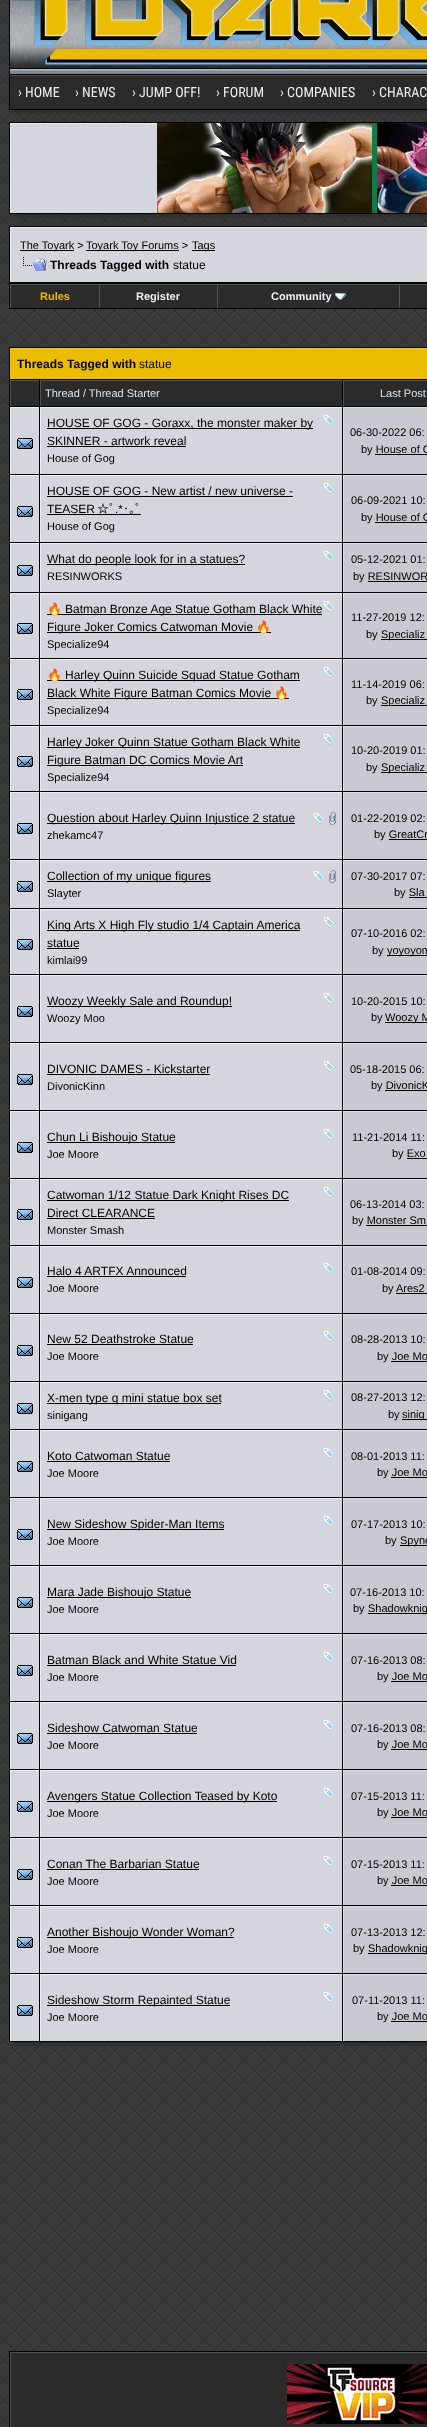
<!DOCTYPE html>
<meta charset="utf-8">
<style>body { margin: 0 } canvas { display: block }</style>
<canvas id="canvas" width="427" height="2427"></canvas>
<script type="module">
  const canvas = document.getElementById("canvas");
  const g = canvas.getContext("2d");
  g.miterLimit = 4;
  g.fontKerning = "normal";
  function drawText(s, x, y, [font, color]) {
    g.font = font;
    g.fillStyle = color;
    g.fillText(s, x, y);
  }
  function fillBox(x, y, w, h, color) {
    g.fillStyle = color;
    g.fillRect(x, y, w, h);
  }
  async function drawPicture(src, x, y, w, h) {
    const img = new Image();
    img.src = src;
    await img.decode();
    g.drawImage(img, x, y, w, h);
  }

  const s1 = ["14px Roboto Condensed", "#EEEEEE"];
  const s2 = ["11px Liberation Sans", "#000000"];
  const s3 = ["bold 12px Liberation Sans", "#000000"];
  const s4 = ["12px Liberation Sans", "#000000"];
  const s5 = ["bold 11px Liberation Sans", "#EBBC00"];
  const s6 = ["bold 11px Liberation Sans", "#EEEEEE"];
  const s7 = ["11px Liberation Sans", "#D8E4ED"];
  const s8 = ["12px IPAGothic", "#000000"];
  const s9 = ["12px Noto Color Emoji", "#000000"];

  fillBox(0, 0, 427, 2427, "#FFFFFF");
  await drawPicture("pic1.png", 0, 0, 427, 2427);
  await drawPicture("pic2.png", 10, 68, 417, 6);
  fillBox(9, 0, 1, 74, "#000000");
  await drawPicture("pic3.png", 10, 0, 417, 68);
  g.fillStyle = "#29292B";
  g.filter = "blur(2.5px)";
  g.beginPath();
  g.rect(13, 78, 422, 34);
  g.fill();
  g.filter = "none";
  fillBox(10, 76, 417, 33, "#2B2B2B");
  fillBox(10, 75, 417, 1, "#525252");
  g.strokeStyle = "#000000";
  g.strokeRect(9.5, 74.5, 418, 35);
  drawText("› HOME", 18, 97, s1);
  drawText("› NEWS", 75, 97, s1);
  drawText("› JUMP OFF!", 132, 97, s1);
  drawText("› FORUM", 216, 97, s1);
  drawText("› COMPANIES", 280, 97, s1);
  drawText("› CHARAC", 372, 97, s1);
  g.fillStyle = "#29292B";
  g.filter = "blur(2.5px)";
  g.beginPath();
  g.rect(13, 126, 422, 90);
  g.fill();
  g.filter = "none";
  fillBox(11, 124, 146, 89, "#D5D5DE");
  g.save();
  g.beginPath();
  g.rect(10, 123, 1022, 90);
  g.clip();
  g.fillStyle = "#EDEDF7";
  g.beginPath();
  g.moveTo(-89, 24);
  g.lineTo(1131, 24);
  g.lineTo(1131, 312);
  g.lineTo(-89, 312);
  g.closePath();
  g.moveTo(11, 124);
  g.lineTo(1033, 124);
  g.lineTo(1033, 214);
  g.lineTo(11, 214);
  g.closePath();
  g.fill("evenodd");
  g.restore();
  g.strokeRect(9.5, 122.5, 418, 91);
  await drawPicture("pic4.png", 157, 123, 270, 90);
  g.fillStyle = "#29292B";
  g.filter = "blur(2.5px)";
  g.beginPath();
  g.rect(13, 230, 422, 55);
  g.fill();
  g.filter = "none";
  fillBox(9, 226, 418, 83, "#000000");
  fillBox(11, 228, 416, 54, "#D5D5DE");
  fillBox(10, 227, 417, 1, "#EDEDF7");
  fillBox(10, 227, 1, 55, "#EDEDF7");
  fillBox(20, 250, 54, 1, "#000000");
  drawText("The Toyark >", 20, 249, s2);
  fillBox(86, 250, 93, 1, "#000000");
  drawText("Toyark Toy Forums >", 86, 249, s2);
  fillBox(192, 250, 23, 1, "#000000");
  drawText("Tags", 192, 249, s2);
  await drawPicture("pic5.png", 23, 257, 24, 14);
  drawText("Threads Tagged with", 50, 269, s3);
  drawText("statue", 173, 269, s4);
  fillBox(11, 285, 88, 23, "#2B2B2B");
  fillBox(10, 284, 417, 1, "#525252");
  fillBox(10, 284, 1, 24, "#525252");
  drawText("Rules", 40, 300, s5);
  fillBox(100, 285, 117, 23, "#2B2B2B");
  fillBox(99, 284, 1, 24, "#525252");
  drawText("Register", 136, 300, s6);
  fillBox(218, 285, 181, 23, "#2B2B2B");
  fillBox(217, 284, 1, 24, "#525252");
  drawText("Community", 271, 300, s6);
  await drawPicture("pic6.png", 335, 293, 11, 7);
  fillBox(400, 285, 27, 23, "#2B2B2B");
  fillBox(399, 284, 1, 24, "#525252");
  g.fillStyle = "#29292B";
  g.filter = "blur(2.5px)";
  g.beginPath();
  g.rect(13, 351, 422, 1693);
  g.fill();
  g.filter = "none";
  fillBox(9, 347, 418, 1695, "#000000");
  fillBox(11, 349, 416, 30, "#EBBC00");
  fillBox(10, 348, 417, 1, "#EBCB00");
  fillBox(10, 348, 1, 31, "#EBCB00");
  drawText("Threads Tagged with", 17, 368, s3);
  drawText("statue", 139, 368, s4);
  fillBox(11, 381, 28, 25, "#2B2B2B");
  fillBox(10, 380, 29, 1, "#525252");
  fillBox(10, 380, 1, 26, "#525252");
  fillBox(41, 381, 301, 25, "#2B2B2B");
  fillBox(40, 380, 302, 1, "#525252");
  fillBox(40, 380, 1, 26, "#525252");
  drawText("Thread / Thread Starter", 45, 397, s7);
  fillBox(344, 381, 83, 25, "#2B2B2B");
  fillBox(343, 380, 84, 1, "#525252");
  fillBox(343, 380, 1, 26, "#525252");
  drawText("Last Post", 380, 397, s7);
  fillBox(11, 408, 28, 66, "#D5D5DE");
  fillBox(10, 407, 29, 1, "#EDEDF7");
  fillBox(10, 407, 1, 67, "#EDEDF7");
  await drawPicture("pic7.png", 17, 438, 16, 11);
  fillBox(41, 408, 301, 66, "#D5D5DE");
  fillBox(40, 407, 302, 1, "#EDEDF7");
  fillBox(40, 407, 1, 67, "#EDEDF7");
  fillBox(47, 428, 266, 1, "#000000");
  drawText("HOUSE OF GOG - Goraxx, the monster maker by", 47, 427, s4);
  await drawPicture("pic8.png", 323, 414, 12, 12);
  drawText("SKINNER - artwork reveal", 47, 445, s4);
  fillBox(47, 446, 139, 1, "#000000");
  drawText("House of Gog", 47, 462, s2);
  fillBox(344, 408, 83, 66, "#C9C9D1");
  fillBox(343, 407, 84, 1, "#E1E1EB");
  fillBox(343, 407, 1, 67, "#E1E1EB");
  drawText("06-30-2022 06:", 350, 436, s2);
  drawText("by House of G", 361, 453, s2);
  fillBox(375, 454, 52, 1, "#000000");
  fillBox(11, 476, 28, 66, "#D5D5DE");
  fillBox(10, 475, 29, 1, "#EDEDF7");
  fillBox(10, 475, 1, 67, "#EDEDF7");
  await drawPicture("pic7.png", 17, 506, 16, 11);
  fillBox(41, 476, 301, 66, "#D5D5DE");
  fillBox(40, 475, 302, 1, "#EDEDF7");
  fillBox(40, 475, 1, 67, "#EDEDF7");
  drawText("HOUSE OF GOG - New artist / new universe -", 47, 495, s4);
  fillBox(47, 496, 246, 1, "#000000");
  await drawPicture("pic8.png", 323, 482, 12, 12);
  drawText("TEASER", 47, 513, s4);
  fillBox(47, 514, 94, 1, "#000000");
  drawText("☆ﾟ", 97, 513, s8);
  drawText(".*", 115, 513, s4);
  drawText("･｡ﾟ", 123, 513, s8);
  drawText("House of Gog", 47, 530, s2);
  fillBox(344, 476, 83, 66, "#C9C9D1");
  fillBox(343, 475, 84, 1, "#E1E1EB");
  fillBox(343, 475, 1, 67, "#E1E1EB");
  drawText("06-09-2021 10:", 351, 504, s2);
  drawText("by House of G", 361, 521, s2);
  fillBox(375, 522, 52, 1, "#000000");
  fillBox(11, 544, 28, 48, "#D5D5DE");
  fillBox(10, 543, 29, 1, "#EDEDF7");
  fillBox(10, 543, 1, 49, "#EDEDF7");
  await drawPicture("pic7.png", 17, 565, 16, 11);
  fillBox(41, 544, 301, 48, "#D5D5DE");
  fillBox(40, 543, 302, 1, "#EDEDF7");
  fillBox(40, 543, 1, 49, "#EDEDF7");
  fillBox(47, 564, 198, 1, "#000000");
  drawText("What do people look for in a statues?", 47, 563, s4);
  await drawPicture("pic8.png", 323, 550, 12, 12);
  drawText("RESINWORKS", 47, 580, s2);
  fillBox(344, 544, 83, 48, "#C9C9D1");
  fillBox(343, 543, 84, 1, "#E1E1EB");
  fillBox(343, 543, 1, 49, "#E1E1EB");
  drawText("05-12-2021 01:", 351, 563, s2);
  drawText("by RESINWOR", 353, 580, s2);
  fillBox(368, 581, 59, 1, "#000000");
  fillBox(11, 594, 28, 64, "#D5D5DE");
  fillBox(10, 593, 29, 1, "#EDEDF7");
  fillBox(10, 593, 1, 65, "#EDEDF7");
  await drawPicture("pic7.png", 17, 623, 16, 11);
  fillBox(41, 594, 301, 64, "#D5D5DE");
  fillBox(40, 593, 302, 1, "#EDEDF7");
  fillBox(40, 593, 1, 65, "#EDEDF7");
  fillBox(47, 614, 275, 1, "#000000");
  drawText("🔥", 47, 613, s9);
  drawText("Batman Bronze Age Statue Gotham Black White", 65, 613, s4);
  await drawPicture("pic8.png", 323, 600, 12, 12);
  fillBox(47, 632, 224, 1, "#000000");
  drawText("Figure Joker Comics Catwoman Movie", 47, 631, s4);
  drawText("🔥", 256, 631, s9);
  drawText("Specialize94", 47, 648, s2);
  fillBox(344, 594, 83, 64, "#C9C9D1");
  fillBox(343, 593, 84, 1, "#E1E1EB");
  fillBox(343, 593, 1, 65, "#E1E1EB");
  drawText("11-27-2019 12:", 351, 621, s2);
  drawText("by", 366, 638, s2);
  fillBox(381, 639, 46, 1, "#000000");
  drawText("Specializ", 381, 638, s2);
  fillBox(11, 660, 28, 65, "#D5D5DE");
  fillBox(10, 659, 29, 1, "#EDEDF7");
  fillBox(10, 659, 1, 66, "#EDEDF7");
  await drawPicture("pic7.png", 17, 689, 16, 11);
  fillBox(41, 660, 301, 65, "#D5D5DE");
  fillBox(40, 659, 302, 1, "#EDEDF7");
  fillBox(40, 659, 1, 66, "#EDEDF7");
  fillBox(47, 680, 253, 1, "#000000");
  drawText("🔥", 47, 679, s9);
  drawText("Harley Quinn Suicide Squad Statue Gotham", 65, 679, s4);
  await drawPicture("pic8.png", 323, 666, 12, 12);
  fillBox(47, 698, 242, 1, "#000000");
  drawText("Black White Figure Batman Comics Movie", 47, 697, s4);
  drawText("🔥", 274, 697, s9);
  drawText("Specialize94", 47, 714, s2);
  fillBox(344, 660, 83, 65, "#C9C9D1");
  fillBox(343, 659, 84, 1, "#E1E1EB");
  fillBox(343, 659, 1, 66, "#E1E1EB");
  drawText("11-14-2019 06:", 351, 688, s2);
  drawText("by", 366, 704, s2);
  fillBox(381, 705, 46, 1, "#000000");
  drawText("Specializ", 381, 704, s2);
  fillBox(11, 727, 28, 64, "#D5D5DE");
  fillBox(10, 726, 29, 1, "#EDEDF7");
  fillBox(10, 726, 1, 65, "#EDEDF7");
  await drawPicture("pic7.png", 17, 756, 16, 11);
  fillBox(41, 727, 301, 64, "#D5D5DE");
  fillBox(40, 726, 302, 1, "#EDEDF7");
  fillBox(40, 726, 1, 65, "#EDEDF7");
  fillBox(47, 747, 253, 1, "#000000");
  drawText("Harley Joker Quinn Statue Gotham Black White", 47, 746, s4);
  await drawPicture("pic8.png", 323, 733, 12, 12);
  fillBox(47, 765, 196, 1, "#000000");
  drawText("Figure Batman DC Comics Movie Art", 47, 764, s4);
  drawText("Specialize94", 47, 781, s2);
  fillBox(344, 727, 83, 64, "#C9C9D1");
  fillBox(343, 726, 84, 1, "#E1E1EB");
  fillBox(343, 726, 1, 65, "#E1E1EB");
  drawText("10-20-2019 01:", 351, 754, s2);
  drawText("by", 366, 771, s2);
  fillBox(381, 772, 46, 1, "#000000");
  drawText("Specializ", 381, 771, s2);
  fillBox(11, 793, 28, 66, "#D5D5DE");
  fillBox(10, 792, 29, 1, "#EDEDF7");
  fillBox(10, 792, 1, 67, "#EDEDF7");
  await drawPicture("pic7.png", 17, 823, 16, 11);
  fillBox(41, 793, 301, 66, "#D5D5DE");
  fillBox(40, 792, 302, 1, "#EDEDF7");
  fillBox(40, 792, 1, 67, "#EDEDF7");
  fillBox(47, 823, 248, 1, "#000000");
  drawText("Question about Harley Quinn Injustice 2 statue", 47, 822, s4);
  await drawPicture("pic8.png", 313, 812, 12, 12);
  await drawPicture("pic9.png", 329, 812, 7, 13);
  drawText("zhekamc47", 47, 839, s2);
  fillBox(344, 793, 83, 66, "#C9C9D1");
  fillBox(343, 792, 84, 1, "#E1E1EB");
  fillBox(343, 792, 1, 67, "#E1E1EB");
  drawText("01-22-2019 02:", 351, 822, s2);
  drawText("by GreatCr", 374, 838, s2);
  fillBox(389, 839, 38, 1, "#000000");
  fillBox(11, 861, 28, 47, "#D5D5DE");
  fillBox(10, 860, 29, 1, "#EDEDF7");
  fillBox(10, 860, 1, 48, "#EDEDF7");
  await drawPicture("pic7.png", 17, 881, 16, 11);
  fillBox(41, 861, 301, 47, "#D5D5DE");
  fillBox(40, 860, 302, 1, "#EDEDF7");
  fillBox(40, 860, 1, 48, "#EDEDF7");
  fillBox(47, 881, 164, 1, "#000000");
  drawText("Collection of my unique figures", 47, 880, s4);
  await drawPicture("pic8.png", 313, 870, 12, 12);
  await drawPicture("pic9.png", 329, 870, 7, 13);
  drawText("Slayter", 47, 897, s2);
  fillBox(344, 861, 83, 47, "#C9C9D1");
  fillBox(343, 860, 84, 1, "#E1E1EB");
  fillBox(343, 860, 1, 48, "#E1E1EB");
  drawText("07-30-2017 07:", 351, 880, s2);
  drawText("by Sla", 394, 896, s2);
  fillBox(409, 897, 18, 1, "#000000");
  fillBox(11, 910, 28, 64, "#D5D5DE");
  fillBox(10, 909, 29, 1, "#EDEDF7");
  fillBox(10, 909, 1, 65, "#EDEDF7");
  await drawPicture("pic7.png", 17, 939, 16, 11);
  fillBox(41, 910, 301, 64, "#D5D5DE");
  fillBox(40, 909, 302, 1, "#EDEDF7");
  fillBox(40, 909, 1, 65, "#EDEDF7");
  fillBox(47, 930, 253, 1, "#000000");
  drawText("King Arts X High Fly studio 1/4 Captain America", 47, 929, s4);
  await drawPicture("pic8.png", 323, 916, 12, 12);
  drawText("statue", 47, 947, s4);
  fillBox(47, 948, 32, 1, "#000000");
  drawText("kimlai99", 47, 964, s2);
  fillBox(344, 910, 83, 64, "#C9C9D1");
  fillBox(343, 909, 84, 1, "#E1E1EB");
  fillBox(343, 909, 1, 65, "#E1E1EB");
  drawText("07-10-2016 02:", 351, 937, s2);
  drawText("by", 372, 954, s2);
  fillBox(387, 955, 40, 1, "#000000");
  drawText("yoyoyom", 387, 954, s2);
  fillBox(11, 976, 28, 66, "#D5D5DE");
  fillBox(10, 975, 29, 1, "#EDEDF7");
  fillBox(10, 975, 1, 67, "#EDEDF7");
  await drawPicture("pic7.png", 17, 1006, 16, 11);
  fillBox(41, 976, 301, 66, "#D5D5DE");
  fillBox(40, 975, 302, 1, "#EDEDF7");
  fillBox(40, 975, 1, 67, "#EDEDF7");
  fillBox(47, 1006, 185, 1, "#000000");
  drawText("Woozy Weekly Sale and Roundup!", 47, 1005, s4);
  await drawPicture("pic8.png", 323, 992, 12, 12);
  drawText("Woozy Moo", 47, 1022, s2);
  fillBox(344, 976, 83, 66, "#C9C9D1");
  fillBox(343, 975, 84, 1, "#E1E1EB");
  fillBox(343, 975, 1, 67, "#E1E1EB");
  drawText("10-20-2015 10:", 351, 1005, s2);
  drawText("by", 371, 1021, s2);
  fillBox(385, 1022, 42, 1, "#000000");
  drawText("Woozy M", 385, 1021, s2);
  fillBox(11, 1044, 28, 66, "#D5D5DE");
  fillBox(10, 1043, 29, 1, "#EDEDF7");
  fillBox(10, 1043, 1, 67, "#EDEDF7");
  await drawPicture("pic7.png", 17, 1074, 16, 11);
  fillBox(41, 1044, 301, 66, "#D5D5DE");
  fillBox(40, 1043, 302, 1, "#EDEDF7");
  fillBox(40, 1043, 1, 67, "#EDEDF7");
  drawText("DIVONIC DAMES - Kickstarter", 47, 1073, s4);
  fillBox(47, 1074, 163, 1, "#000000");
  await drawPicture("pic8.png", 323, 1060, 12, 12);
  drawText("DivonicKinn", 47, 1090, s2);
  fillBox(344, 1044, 83, 66, "#C9C9D1");
  fillBox(343, 1043, 84, 1, "#E1E1EB");
  fillBox(343, 1043, 1, 67, "#E1E1EB");
  drawText("05-18-2015 06:", 350, 1073, s2);
  drawText("by DivonicK", 371, 1089, s2);
  fillBox(385, 1090, 42, 1, "#000000");
  fillBox(11, 1112, 28, 66, "#D5D5DE");
  fillBox(10, 1111, 29, 1, "#EDEDF7");
  fillBox(10, 1111, 1, 67, "#EDEDF7");
  await drawPicture("pic7.png", 17, 1142, 16, 11);
  fillBox(41, 1112, 301, 66, "#D5D5DE");
  fillBox(40, 1111, 302, 1, "#EDEDF7");
  fillBox(40, 1111, 1, 67, "#EDEDF7");
  fillBox(47, 1142, 128, 1, "#000000");
  drawText("Chun Li Bishoujo Statue", 47, 1141, s4);
  await drawPicture("pic8.png", 323, 1128, 12, 12);
  drawText("Joe Moore", 47, 1158, s2);
  fillBox(344, 1112, 83, 66, "#C9C9D1");
  fillBox(343, 1111, 84, 1, "#E1E1EB");
  fillBox(343, 1111, 1, 67, "#E1E1EB");
  drawText("11-21-2014 11:", 352, 1141, s2);
  drawText("by Exo", 392, 1157, s2);
  fillBox(407, 1158, 20, 1, "#000000");
  fillBox(11, 1180, 28, 65, "#D5D5DE");
  fillBox(10, 1179, 29, 1, "#EDEDF7");
  fillBox(10, 1179, 1, 66, "#EDEDF7");
  await drawPicture("pic7.png", 17, 1209, 16, 11);
  fillBox(41, 1180, 301, 65, "#D5D5DE");
  fillBox(40, 1179, 302, 1, "#EDEDF7");
  fillBox(40, 1179, 1, 66, "#EDEDF7");
  fillBox(47, 1200, 242, 1, "#000000");
  drawText("Catwoman 1/12 Statue Dark Knight Rises DC", 47, 1199, s4);
  await drawPicture("pic8.png", 323, 1186, 12, 12);
  drawText("Direct CLEARANCE", 47, 1217, s4);
  fillBox(47, 1218, 108, 1, "#000000");
  drawText("Monster Smash", 47, 1234, s2);
  fillBox(344, 1180, 83, 65, "#C9C9D1");
  fillBox(343, 1179, 84, 1, "#E1E1EB");
  fillBox(343, 1179, 1, 66, "#E1E1EB");
  drawText("06-13-2014 03:", 350, 1208, s2);
  drawText("by Monster Sm", 352, 1224, s2);
  fillBox(366, 1225, 61, 1, "#000000");
  fillBox(11, 1247, 28, 66, "#D5D5DE");
  fillBox(10, 1246, 29, 1, "#EDEDF7");
  fillBox(10, 1246, 1, 67, "#EDEDF7");
  await drawPicture("pic7.png", 17, 1277, 16, 11);
  fillBox(41, 1247, 301, 66, "#D5D5DE");
  fillBox(40, 1246, 302, 1, "#EDEDF7");
  fillBox(40, 1246, 1, 67, "#EDEDF7");
  drawText("Halo 4 ARTFX Announced", 47, 1275, s4);
  fillBox(47, 1276, 139, 1, "#000000");
  await drawPicture("pic8.png", 323, 1262, 12, 12);
  drawText("Joe Moore", 47, 1292, s2);
  fillBox(344, 1247, 83, 66, "#C9C9D1");
  fillBox(343, 1246, 84, 1, "#E1E1EB");
  fillBox(343, 1246, 1, 67, "#E1E1EB");
  drawText("01-08-2014 09:", 351, 1275, s2);
  drawText("by", 382, 1292, s2);
  drawText("Ares2", 396, 1292, s2);
  fillBox(396, 1293, 31, 1, "#000000");
  fillBox(11, 1315, 28, 66, "#D5D5DE");
  fillBox(10, 1314, 29, 1, "#EDEDF7");
  fillBox(10, 1314, 1, 67, "#EDEDF7");
  await drawPicture("pic7.png", 17, 1345, 16, 11);
  fillBox(41, 1315, 301, 66, "#D5D5DE");
  fillBox(40, 1314, 302, 1, "#EDEDF7");
  fillBox(40, 1314, 1, 67, "#EDEDF7");
  drawText("New 52 Deathstroke Statue", 47, 1343, s4);
  fillBox(47, 1344, 146, 1, "#000000");
  await drawPicture("pic8.png", 323, 1330, 12, 12);
  drawText("Joe Moore", 47, 1360, s2);
  fillBox(344, 1315, 83, 66, "#C9C9D1");
  fillBox(343, 1314, 84, 1, "#E1E1EB");
  fillBox(343, 1314, 1, 67, "#E1E1EB");
  drawText("08-28-2013 10:", 351, 1343, s2);
  drawText("by Joe Mo", 377, 1360, s2);
  fillBox(391, 1361, 36, 1, "#000000");
  fillBox(11, 1383, 28, 46, "#D5D5DE");
  fillBox(10, 1382, 29, 1, "#EDEDF7");
  fillBox(10, 1382, 1, 47, "#EDEDF7");
  await drawPicture("pic7.png", 17, 1403, 16, 11);
  fillBox(41, 1383, 301, 46, "#D5D5DE");
  fillBox(40, 1382, 302, 1, "#EDEDF7");
  fillBox(40, 1382, 1, 47, "#EDEDF7");
  fillBox(47, 1403, 174, 1, "#000000");
  drawText("X-men type q mini statue box set", 47, 1402, s4);
  await drawPicture("pic8.png", 323, 1389, 12, 12);
  drawText("sinigang", 47, 1419, s2);
  fillBox(344, 1383, 83, 46, "#C9C9D1");
  fillBox(343, 1382, 84, 1, "#E1E1EB");
  fillBox(343, 1382, 1, 47, "#E1E1EB");
  drawText("08-27-2013 12:", 351, 1401, s2);
  drawText("by", 388, 1418, s2);
  fillBox(402, 1419, 25, 1, "#000000");
  drawText("sinig", 402, 1418, s2);
  fillBox(11, 1431, 28, 66, "#D5D5DE");
  fillBox(10, 1430, 29, 1, "#EDEDF7");
  fillBox(10, 1430, 1, 67, "#EDEDF7");
  await drawPicture("pic7.png", 17, 1461, 16, 11);
  fillBox(41, 1431, 301, 66, "#D5D5DE");
  fillBox(40, 1430, 302, 1, "#EDEDF7");
  fillBox(40, 1430, 1, 67, "#EDEDF7");
  drawText("Koto Catwoman Statue", 47, 1460, s4);
  fillBox(47, 1461, 123, 1, "#000000");
  await drawPicture("pic8.png", 323, 1447, 12, 12);
  drawText("Joe Moore", 47, 1477, s2);
  fillBox(344, 1431, 83, 66, "#C9C9D1");
  fillBox(343, 1430, 84, 1, "#E1E1EB");
  fillBox(343, 1430, 1, 67, "#E1E1EB");
  drawText("08-01-2013 11:", 351, 1460, s2);
  drawText("by Joe Mo", 377, 1476, s2);
  fillBox(391, 1477, 36, 1, "#000000");
  fillBox(11, 1499, 28, 66, "#D5D5DE");
  fillBox(10, 1498, 29, 1, "#EDEDF7");
  fillBox(10, 1498, 1, 67, "#EDEDF7");
  await drawPicture("pic7.png", 17, 1529, 16, 11);
  fillBox(41, 1499, 301, 66, "#D5D5DE");
  fillBox(40, 1498, 302, 1, "#EDEDF7");
  fillBox(40, 1498, 1, 67, "#EDEDF7");
  fillBox(47, 1529, 177, 1, "#000000");
  drawText("New Sideshow Spider-Man Items", 47, 1528, s4);
  await drawPicture("pic8.png", 323, 1515, 12, 12);
  drawText("Joe Moore", 47, 1545, s2);
  fillBox(344, 1499, 83, 66, "#C9C9D1");
  fillBox(343, 1498, 84, 1, "#E1E1EB");
  fillBox(343, 1498, 1, 67, "#E1E1EB");
  drawText("07-17-2013 10:", 351, 1528, s2);
  drawText("by", 385, 1544, s2);
  fillBox(400, 1545, 27, 1, "#000000");
  drawText("Spyne", 400, 1544, s2);
  fillBox(11, 1567, 28, 66, "#D5D5DE");
  fillBox(10, 1566, 29, 1, "#EDEDF7");
  fillBox(10, 1566, 1, 67, "#EDEDF7");
  await drawPicture("pic7.png", 17, 1597, 16, 11);
  fillBox(41, 1567, 301, 66, "#D5D5DE");
  fillBox(40, 1566, 302, 1, "#EDEDF7");
  fillBox(40, 1566, 1, 67, "#EDEDF7");
  fillBox(47, 1597, 144, 1, "#000000");
  drawText("Mara Jade Bishoujo Statue", 47, 1596, s4);
  await drawPicture("pic8.png", 323, 1583, 12, 12);
  drawText("Joe Moore", 47, 1613, s2);
  fillBox(344, 1567, 83, 66, "#C9C9D1");
  fillBox(343, 1566, 84, 1, "#E1E1EB");
  fillBox(343, 1566, 1, 67, "#E1E1EB");
  drawText("07-16-2013 10:", 350, 1596, s2);
  drawText("by", 353, 1612, s2);
  fillBox(368, 1613, 59, 1, "#000000");
  drawText("Shadowknig", 368, 1612, s2);
  fillBox(11, 1635, 28, 66, "#D5D5DE");
  fillBox(10, 1634, 29, 1, "#EDEDF7");
  fillBox(10, 1634, 1, 67, "#EDEDF7");
  await drawPicture("pic7.png", 17, 1665, 16, 11);
  fillBox(41, 1635, 301, 66, "#D5D5DE");
  fillBox(40, 1634, 302, 1, "#EDEDF7");
  fillBox(40, 1634, 1, 67, "#EDEDF7");
  drawText("Batman Black and White Statue Vid", 47, 1664, s4);
  fillBox(47, 1665, 189, 1, "#000000");
  await drawPicture("pic8.png", 323, 1651, 12, 12);
  drawText("Joe Moore", 47, 1681, s2);
  fillBox(344, 1635, 83, 66, "#C9C9D1");
  fillBox(343, 1634, 84, 1, "#E1E1EB");
  fillBox(343, 1634, 1, 67, "#E1E1EB");
  drawText("07-16-2013 08:", 351, 1664, s2);
  drawText("by Joe Mo", 377, 1680, s2);
  fillBox(391, 1681, 36, 1, "#000000");
  fillBox(11, 1703, 28, 66, "#D5D5DE");
  fillBox(10, 1702, 29, 1, "#EDEDF7");
  fillBox(10, 1702, 1, 67, "#EDEDF7");
  await drawPicture("pic7.png", 17, 1733, 16, 11);
  fillBox(41, 1703, 301, 66, "#D5D5DE");
  fillBox(40, 1702, 302, 1, "#EDEDF7");
  fillBox(40, 1702, 1, 67, "#EDEDF7");
  drawText("Sideshow Catwoman Statue", 47, 1732, s4);
  fillBox(47, 1733, 150, 1, "#000000");
  await drawPicture("pic8.png", 323, 1719, 12, 12);
  drawText("Joe Moore", 47, 1749, s2);
  fillBox(344, 1703, 83, 66, "#C9C9D1");
  fillBox(343, 1702, 84, 1, "#E1E1EB");
  fillBox(343, 1702, 1, 67, "#E1E1EB");
  drawText("07-16-2013 08:", 351, 1732, s2);
  drawText("by Joe Mo", 377, 1748, s2);
  fillBox(391, 1749, 36, 1, "#000000");
  fillBox(11, 1771, 28, 66, "#D5D5DE");
  fillBox(10, 1770, 29, 1, "#EDEDF7");
  fillBox(10, 1770, 1, 67, "#EDEDF7");
  await drawPicture("pic7.png", 17, 1801, 16, 11);
  fillBox(41, 1771, 301, 66, "#D5D5DE");
  fillBox(40, 1770, 302, 1, "#EDEDF7");
  fillBox(40, 1770, 1, 67, "#EDEDF7");
  fillBox(47, 1801, 230, 1, "#000000");
  drawText("Avengers Statue Collection Teased by Koto", 47, 1800, s4);
  await drawPicture("pic8.png", 323, 1787, 12, 12);
  drawText("Joe Moore", 47, 1817, s2);
  fillBox(344, 1771, 83, 66, "#C9C9D1");
  fillBox(343, 1770, 84, 1, "#E1E1EB");
  fillBox(343, 1770, 1, 67, "#E1E1EB");
  drawText("07-15-2013 11:", 351, 1800, s2);
  drawText("by Joe Mo", 377, 1816, s2);
  fillBox(391, 1817, 36, 1, "#000000");
  fillBox(11, 1839, 28, 66, "#D5D5DE");
  fillBox(10, 1838, 29, 1, "#EDEDF7");
  fillBox(10, 1838, 1, 67, "#EDEDF7");
  await drawPicture("pic7.png", 17, 1869, 16, 11);
  fillBox(41, 1839, 301, 66, "#D5D5DE");
  fillBox(40, 1838, 302, 1, "#EDEDF7");
  fillBox(40, 1838, 1, 67, "#EDEDF7");
  drawText("Conan The Barbarian Statue", 47, 1868, s4);
  fillBox(47, 1869, 152, 1, "#000000");
  await drawPicture("pic8.png", 323, 1855, 12, 12);
  drawText("Joe Moore", 47, 1885, s2);
  fillBox(344, 1839, 83, 66, "#C9C9D1");
  fillBox(343, 1838, 84, 1, "#E1E1EB");
  fillBox(343, 1838, 1, 67, "#E1E1EB");
  drawText("07-15-2013 11:", 351, 1868, s2);
  drawText("by Joe Mo", 377, 1884, s2);
  fillBox(391, 1885, 36, 1, "#000000");
  fillBox(11, 1907, 28, 66, "#D5D5DE");
  fillBox(10, 1906, 29, 1, "#EDEDF7");
  fillBox(10, 1906, 1, 67, "#EDEDF7");
  await drawPicture("pic7.png", 17, 1937, 16, 11);
  fillBox(41, 1907, 301, 66, "#D5D5DE");
  fillBox(40, 1906, 302, 1, "#EDEDF7");
  fillBox(40, 1906, 1, 67, "#EDEDF7");
  fillBox(47, 1937, 187, 1, "#000000");
  drawText("Another Bishoujo Wonder Woman?", 47, 1936, s4);
  await drawPicture("pic8.png", 323, 1923, 12, 12);
  drawText("Joe Moore", 47, 1953, s2);
  fillBox(344, 1907, 83, 66, "#C9C9D1");
  fillBox(343, 1906, 84, 1, "#E1E1EB");
  fillBox(343, 1906, 1, 67, "#E1E1EB");
  drawText("07-13-2013 12:", 351, 1936, s2);
  drawText("by", 353, 1952, s2);
  fillBox(368, 1953, 59, 1, "#000000");
  drawText("Shadowknig", 368, 1952, s2);
  fillBox(11, 1975, 28, 66, "#D5D5DE");
  fillBox(10, 1974, 29, 1, "#EDEDF7");
  fillBox(10, 1974, 1, 67, "#EDEDF7");
  await drawPicture("pic7.png", 17, 2005, 16, 11);
  fillBox(41, 1975, 301, 66, "#D5D5DE");
  fillBox(40, 1974, 302, 1, "#EDEDF7");
  fillBox(40, 1974, 1, 67, "#EDEDF7");
  fillBox(47, 2005, 183, 1, "#000000");
  drawText("Sideshow Storm Repainted Statue", 47, 2004, s4);
  await drawPicture("pic8.png", 323, 1991, 12, 12);
  drawText("Joe Moore", 47, 2021, s2);
  fillBox(344, 1975, 83, 66, "#C9C9D1");
  fillBox(343, 1974, 84, 1, "#E1E1EB");
  fillBox(343, 1974, 1, 67, "#E1E1EB");
  drawText("07-11-2013 11:", 352, 2004, s2);
  drawText("by Joe Mo", 377, 2020, s2);
  fillBox(391, 2021, 36, 1, "#000000");
  fillBox(11, 2353, 416, 74, "#2B2B2B");
  g.save();
  g.beginPath();
  g.rect(10, 2352, 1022, 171);
  g.clip();
  g.fillStyle = "#525252";
  g.beginPath();
  g.moveTo(-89, 2253);
  g.lineTo(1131, 2253);
  g.lineTo(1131, 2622);
  g.lineTo(-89, 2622);
  g.closePath();
  g.moveTo(11, 2353);
  g.lineTo(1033, 2353);
  g.lineTo(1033, 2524);
  g.lineTo(11, 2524);
  g.closePath();
  g.fill("evenodd");
  g.restore();
  fillBox(9, 2351, 418, 1, "#000000");
  fillBox(9, 2351, 1, 76, "#000000");
  await drawPicture("pic10.png", 287, 2364, 140, 60);
</script>
